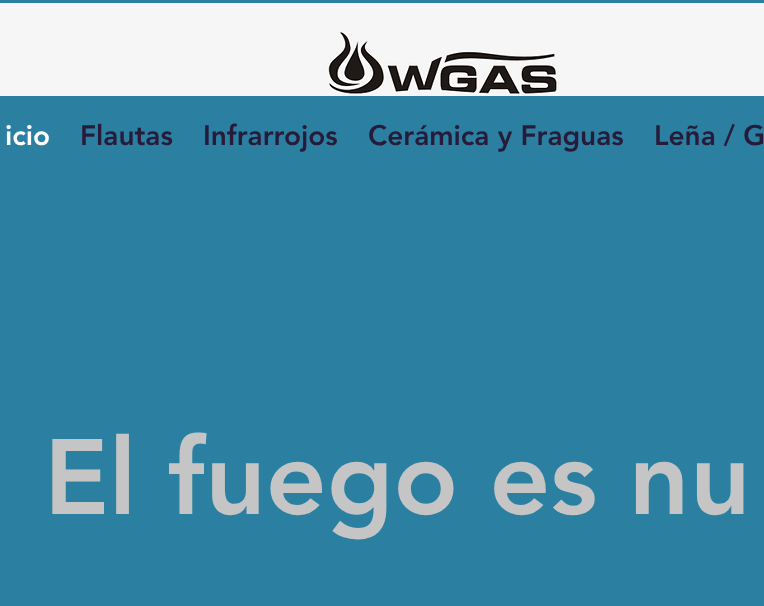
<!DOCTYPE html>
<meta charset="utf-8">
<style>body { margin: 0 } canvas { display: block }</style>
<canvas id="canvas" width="764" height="606"></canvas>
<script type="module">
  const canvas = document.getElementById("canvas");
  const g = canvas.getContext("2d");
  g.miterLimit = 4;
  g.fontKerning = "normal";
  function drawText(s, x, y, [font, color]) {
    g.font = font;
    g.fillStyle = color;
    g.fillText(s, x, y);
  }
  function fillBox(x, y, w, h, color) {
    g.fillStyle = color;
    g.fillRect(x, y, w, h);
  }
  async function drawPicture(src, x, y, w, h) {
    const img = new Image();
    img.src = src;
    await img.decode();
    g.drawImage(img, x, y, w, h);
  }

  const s1 = ["900 28px 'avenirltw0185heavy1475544'", "#FFFFFF"];
  const s2 = ["900 28px 'avenirltw0185heavy1475544'", "#281A39"];
  const s3 = ["900 106px 'avenirltw0185heavy1475544'", "#C5C5C5"];

  fillBox(0, 0, 764, 606, "#2B80A1");
  fillBox(0, 3, 764, 93, "#F6F6F6");
  await drawPicture("pic1.png", 327, 30, 232, 66);
  drawText("icio", 5, 145, s1);
  drawText("Flautas", 80, 145, s2);
  drawText("Infrarrojos", 203, 145, s2);
  drawText("Cerámica y Fraguas", 368, 145, s2);
  drawText("Leña / G", 654, 145, s2);
  drawText("El fuego es nu", 44, 514, s3);
</script>
